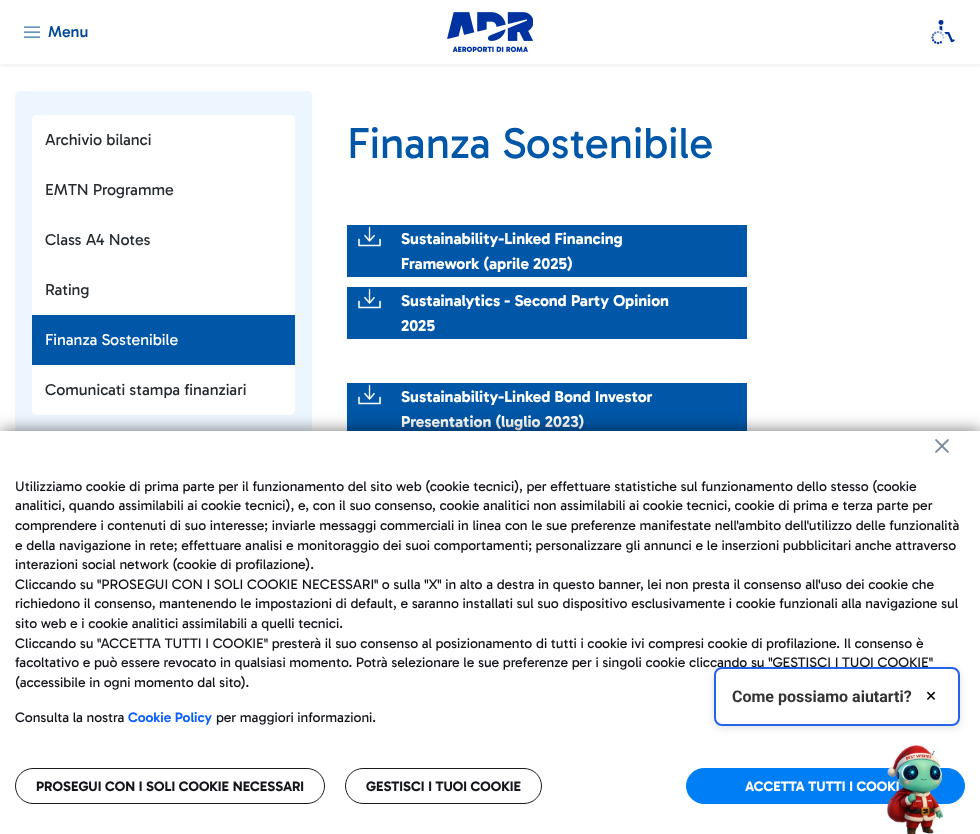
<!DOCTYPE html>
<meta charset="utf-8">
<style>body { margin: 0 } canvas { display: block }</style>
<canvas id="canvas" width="980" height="834"></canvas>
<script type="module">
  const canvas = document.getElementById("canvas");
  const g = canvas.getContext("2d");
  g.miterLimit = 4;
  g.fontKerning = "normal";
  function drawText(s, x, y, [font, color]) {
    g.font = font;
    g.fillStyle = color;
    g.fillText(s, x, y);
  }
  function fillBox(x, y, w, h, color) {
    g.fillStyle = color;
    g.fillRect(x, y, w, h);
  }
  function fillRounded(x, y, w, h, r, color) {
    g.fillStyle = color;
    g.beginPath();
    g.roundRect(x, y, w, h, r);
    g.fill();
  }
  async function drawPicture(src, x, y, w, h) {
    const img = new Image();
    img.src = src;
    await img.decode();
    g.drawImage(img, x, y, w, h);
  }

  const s1 = ["500 16px Gabarito", "#004996"];
  const s2 = ["16px Gabarito", "#262B30"];
  const s3 = ["16px Gabarito", "#FFFFFF"];
  const s4 = ["44px Gabarito", "#0057A7"];
  const s5 = ["bold 16px Gabarito", "#FFFFFF"];
  const s6 = ["14px Gabarito", "#15161C"];
  const s7 = ["600 14px Gabarito", "#0B5FFF"];
  const s8 = ["bold 14px Gabarito", "#15161C"];
  const s9 = ["bold 14px Gabarito", "#FFFFFF"];
  const s10 = ["bold 16px Roboto", "#333333"];
  const s11 = ["19px Roboto", "#000000"];

  fillBox(0, 0, 980, 834, "#FFFFFF");
  g.save();
  g.beginPath();
  g.rect(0, 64, 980, 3);
  g.clip();
  g.fillStyle = "rgba(0, 0, 0, 0.05)";
  g.filter = "blur(2px)";
  g.beginPath();
  g.rect(0, 3, 980, 64);
  g.fill();
  g.filter = "none";
  g.restore();
  await drawPicture("pic1.png", 24, 26, 16, 12);
  drawText("Menu", 48, 37, s1);
  await drawPicture("pic2.png", 447, 12, 86, 40);
  await drawPicture("pic3.png", 931, 19, 24, 26);
  fillRounded(15, 91, 297, 348, 5, "#EDF6FF");
  fillRounded(32, 115, 263, 300, 5, "#FFFFFF");
  drawText("Archivio bilanci", 45, 145, s2);
  drawText("EMTN Programme", 45, 195, s2);
  drawText("Class A4 Notes", 45, 245, s2);
  drawText("Rating", 45, 295, s2);
  fillBox(32, 315, 263, 50, "#0057A7");
  drawText("Finanza Sostenibile", 45, 345, s3);
  drawText("Comunicati stampa finanziari", 45, 395, s2);
  drawText("Finanza Sostenibile", 347, 158, s4);
  fillBox(347, 225, 400, 52, "#0057A7");
  await drawPicture("pic4.png", 357, 226, 25, 21);
  drawText("Sustainability-Linked Financing", 401, 244, s5);
  drawText("Framework (aprile 2025)", 401, 269, s5);
  fillBox(347, 287, 400, 52, "#0057A7");
  await drawPicture("pic4.png", 357, 288, 25, 21);
  drawText("Sustainalytics - Second Party Opinion", 401, 306, s5);
  drawText("2025", 401, 331, s5);
  fillBox(347, 383, 400, 48, "#0057A7");
  await drawPicture("pic4.png", 357, 384, 25, 21);
  drawText("Sustainability-Linked Bond Investor", 401, 402, s5);
  drawText("Presentation (luglio 2023)", 401, 427, s5);
  g.fillStyle = "rgba(0, 0, 0, 0.5)";
  g.filter = "blur(8px)";
  g.beginPath();
  g.rect(1, 430, 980, 403);
  g.fill();
  g.filter = "none";
  fillBox(0, 431, 980, 403, "#FFFFFF");
  await drawPicture("pic5.png", 935, 439, 14, 14);
  drawText("Utilizziamo cookie di prima parte per il funzionamento del sito web (cookie tecnici), per effettuare statistiche sul funzionamento dello stesso (cookie", 15, 491, s6);
  drawText("analitici, quando assimilabili ai cookie tecnici), e, con il suo consenso, cookie analitici non assimilabili ai cookie tecnici, cookie di prima e terza parte per", 15, 510, s6);
  drawText("comprendere i contenuti di suo interesse; inviarle messaggi commerciali in linea con le sue preferenze manifestate nell'ambito dell'utilizzo delle funzionalità", 15, 530, s6);
  drawText("e della navigazione in rete; effettuare analisi e monitoraggio dei suoi comportamenti; personalizzare gli annunci e le inserzioni pubblicitari anche attraverso", 15, 550, s6);
  drawText("interazioni social network (cookie di profilazione).", 15, 569, s6);
  drawText("Cliccando su \"PROSEGUI CON I SOLI COOKIE NECESSARI\" o sulla \"X\" in alto a destra in questo banner, lei non presta il consenso all'uso dei cookie che", 15, 589, s6);
  drawText("richiedono il consenso, mantenendo le impostazioni di default, e saranno installati sul suo dispositivo esclusivamente i cookie funzionali alla navigazione sul", 15, 608, s6);
  drawText("sito web e i cookie analitici assimilabili a quelli tecnici.", 15, 628, s6);
  drawText("Cliccando su \"ACCETTA TUTTI I COOKIE\" presterà il suo consenso al posizionamento di tutti i cookie ivi compresi cookie di profilazione. Il consenso è", 15, 648, s6);
  drawText("facoltativo e può essere revocato in qualsiasi momento. Potrà selezionare le sue preferenze per i singoli cookie cliccando su \"GESTISCI I TUOI COOKIE\"", 15, 667, s6);
  drawText("(accessibile in ogni momento dal sito).", 15, 687, s6);
  drawText("Consulta la nostra", 15, 722, s6);
  drawText("Cookie Policy", 128, 722, s7);
  drawText("per maggiori informazioni.", 216, 722, s6);
  g.beginPath();
  g.roundRect(15.5, 768.5, 309, 35, 17.5);
  g.strokeStyle = "#1A1A1A";
  g.stroke();
  drawText("PROSEGUI CON I SOLI COOKIE NECESSARI", 36, 791, s8);
  g.beginPath();
  g.roundRect(345.5, 768.5, 196, 35, 17.5);
  g.stroke();
  drawText("GESTISCI I TUOI COOKIE", 366, 791, s8);
  g.fillStyle = "#007EF6";
  g.beginPath();
  g.roundRect(686.5, 768.5, 278, 35, 17.5);
  g.fill();
  g.strokeStyle = "#007EF6";
  g.stroke();
  drawText("ACCETTA TUTTI I COOKI", 745, 791, s9);
  g.fillStyle = "rgba(0, 0, 0, 0.12)";
  g.filter = "blur(4px)";
  g.beginPath();
  g.roundRect(714, 669, 246, 59, 8);
  g.fill();
  g.filter = "none";
  g.fillStyle = "#FFFFFF";
  g.beginPath();
  g.roundRect(715, 668, 244, 57, 7);
  g.fill();
  g.strokeStyle = "#2563EB";
  g.lineWidth = 2;
  g.stroke();
  drawText("Come possiamo aiutarti?", 732, 702, s10);
  drawText("×", 926, 702, s11);
  await drawPicture("pic6.png", 887, 745, 56, 89);
</script>
